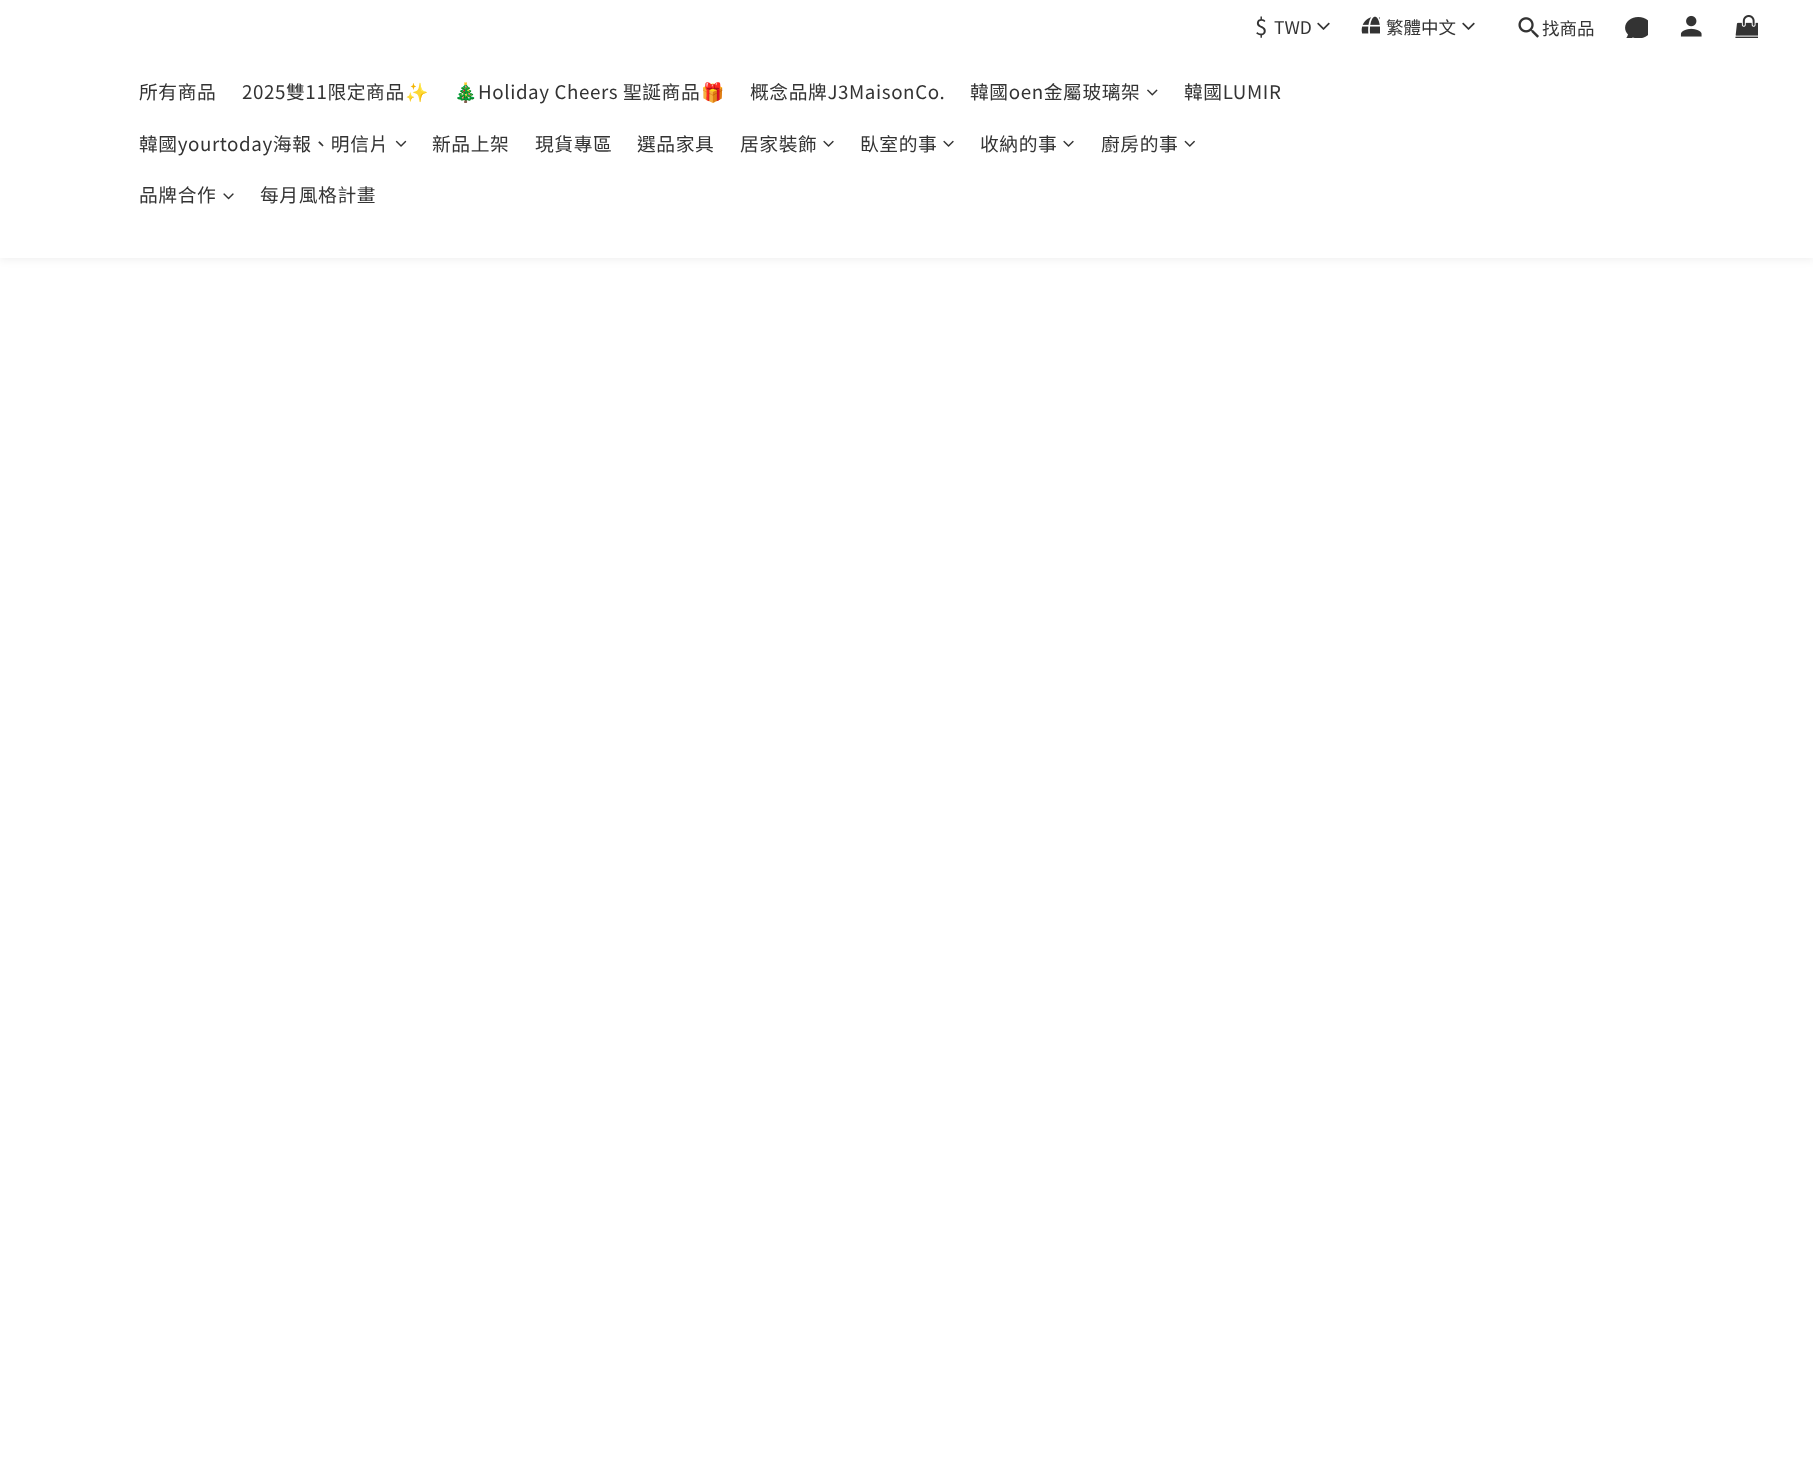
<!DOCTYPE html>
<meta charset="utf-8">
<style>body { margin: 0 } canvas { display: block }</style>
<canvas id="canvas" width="1813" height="1481"></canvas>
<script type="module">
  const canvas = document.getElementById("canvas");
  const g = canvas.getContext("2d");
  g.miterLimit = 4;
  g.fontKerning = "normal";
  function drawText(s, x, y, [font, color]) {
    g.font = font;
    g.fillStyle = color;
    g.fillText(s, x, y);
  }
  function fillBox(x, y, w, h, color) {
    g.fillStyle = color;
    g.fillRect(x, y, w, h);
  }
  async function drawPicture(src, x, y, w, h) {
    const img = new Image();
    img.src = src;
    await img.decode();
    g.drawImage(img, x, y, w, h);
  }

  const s1 = ["22px Noto Sans TC", "#333333"];
  const s2 = ["17.5px Noto Sans TC", "#333333"];
  const s3 = ["18.75px Noto Sans TC", "#333333"];
  const s4 = ["18.75px Noto Color Emoji", "#333333"];

  fillBox(0, 0, 1813, 1481, "#FFFFFF");
  g.fillStyle = "rgba(0, 0, 0, 0.06)";
  g.filter = "blur(4px)";
  g.beginPath();
  g.rect(0, 3, 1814, 257);
  g.fill();
  g.filter = "none";
  fillBox(0, 0, 1813, 258, "#FFFFFF");
  g.letterSpacing = "1px";
  drawText("$", 1255, 35, s1);
  g.letterSpacing = "0px";
  drawText("TWD", 1274, 34, s2);
  await drawPicture("pic1.png", 1317, 22, 13, 8);
  await drawPicture("pic2.png", 1361, 16, 19, 18);
  drawText("繁體中文", 1386, 34, s2);
  await drawPicture("pic1.png", 1462, 22, 13, 8);
  await drawPicture("pic3.png", 1518, 17, 21, 21);
  drawText("找商品", 1542, 35, s2);
  await drawPicture("pic4.png", 1625, 17, 23, 21);
  await drawPicture("pic5.png", 1680, 15, 22, 22);
  await drawPicture("pic6.png", 1735, 15, 23, 23);
  g.letterSpacing = "0.6px";
  drawText("所有商品", 139, 99, s3);
  drawText("2025雙11限定商品", 242, 99, s3);
  drawText("✨", 405, 99, s4);
  drawText("🎄", 454, 99, s4);
  drawText("Holiday Cheers 聖誕商品", 478, 99, s3);
  drawText("🎁", 701, 99, s4);
  drawText("概念品牌J3MaisonCo.", 750, 99, s3);
  drawText("韓國oen金屬玻璃架", 970, 99, s3);
  await drawPicture("pic7.png", 1147, 89, 11, 7);
  drawText("韓國LUMIR", 1184, 99, s3);
  drawText("韓國yourtoday海報、明信片", 139, 151, s3);
  await drawPicture("pic8.png", 395, 140, 12, 7);
  drawText("新品上架", 432, 151, s3);
  drawText("現貨專區", 535, 151, s3);
  drawText("選品家具", 637, 151, s3);
  drawText("居家裝飾", 740, 151, s3);
  await drawPicture("pic9.png", 823, 140, 11, 7);
  drawText("臥室的事", 860, 151, s3);
  await drawPicture("pic9.png", 943, 140, 11, 7);
  drawText("收納的事", 980, 151, s3);
  await drawPicture("pic9.png", 1063, 140, 11, 7);
  drawText("廚房的事", 1101, 151, s3);
  await drawPicture("pic10.png", 1184, 140, 11, 7);
  drawText("品牌合作", 139, 202, s3);
  await drawPicture("pic11.png", 223, 193, 11, 7);
  drawText("每月風格計畫", 260, 202, s3);
</script>
